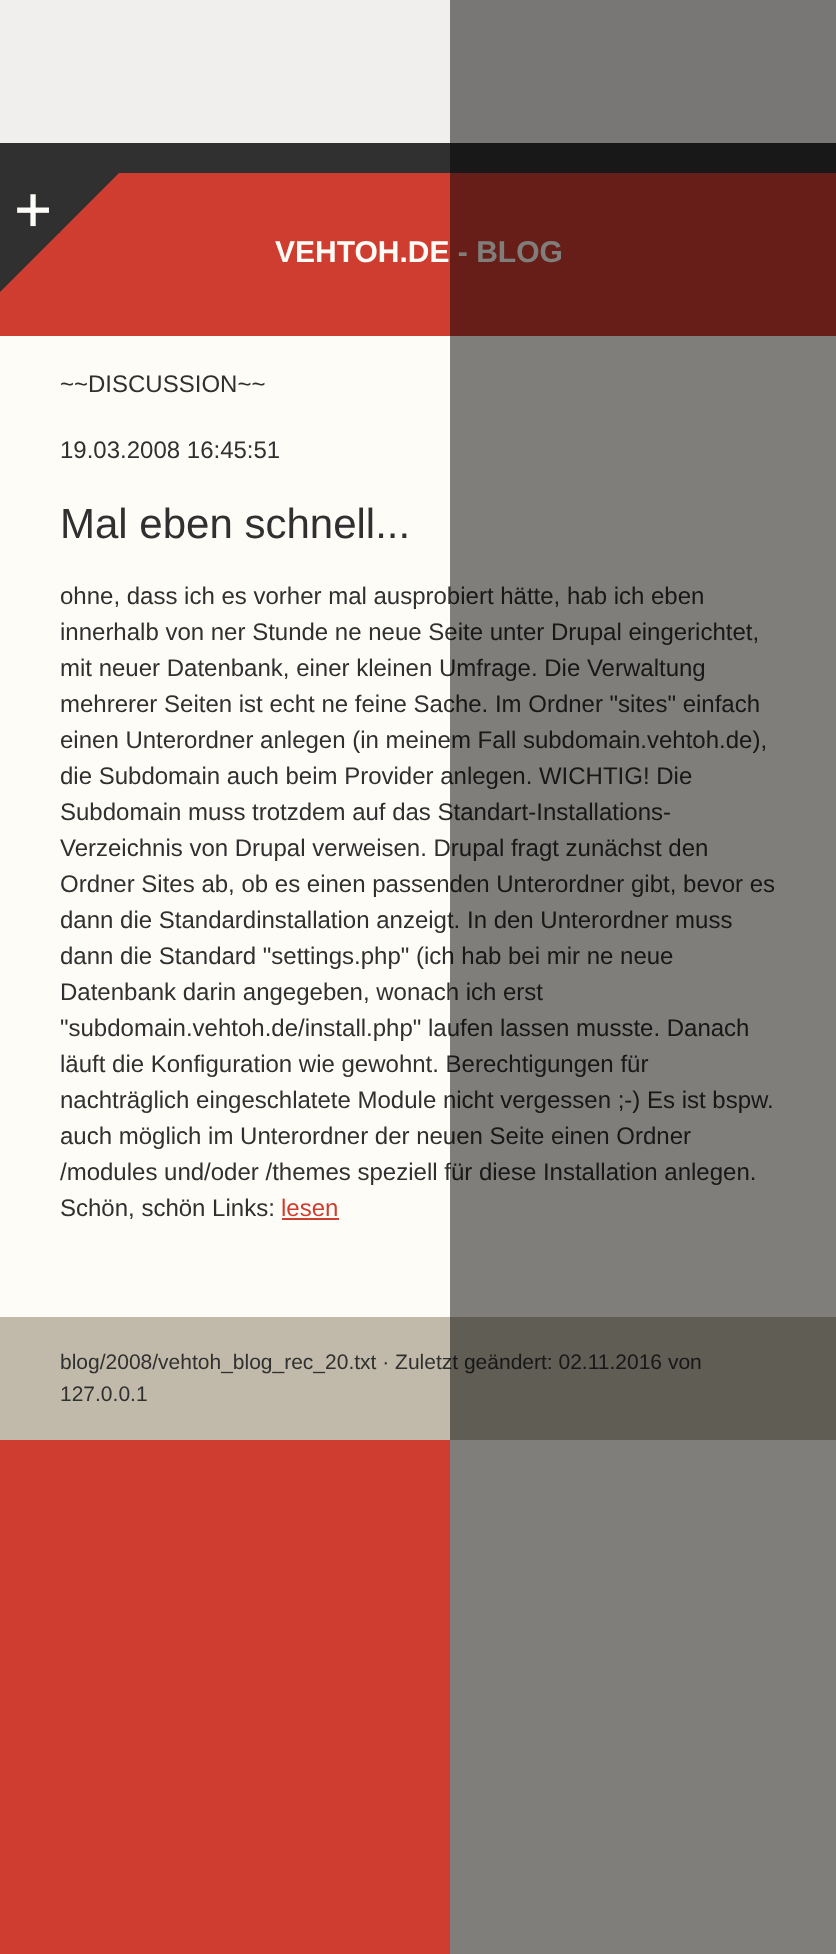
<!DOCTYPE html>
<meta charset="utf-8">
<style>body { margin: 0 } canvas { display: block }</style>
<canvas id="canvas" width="836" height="1954"></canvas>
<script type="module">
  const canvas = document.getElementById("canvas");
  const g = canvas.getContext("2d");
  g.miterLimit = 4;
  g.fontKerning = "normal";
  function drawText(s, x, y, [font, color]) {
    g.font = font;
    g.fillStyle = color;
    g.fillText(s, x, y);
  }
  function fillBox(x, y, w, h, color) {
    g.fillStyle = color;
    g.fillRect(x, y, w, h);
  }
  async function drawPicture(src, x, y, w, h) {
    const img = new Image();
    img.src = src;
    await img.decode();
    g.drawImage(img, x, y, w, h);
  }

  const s1 = ["bold 30px Liberation Sans", "#FEFCF7"];
  const s2 = ["24px Liberation Sans", "#303030"];
  const s3 = ["21px Liberation Sans", "#303030"];
  const s4 = ["42px Liberation Sans", "#303030"];
  const s5 = ["24px Liberation Sans", "#CF3D30"];

  fillBox(0, 0, 836, 1954, "#FEFCF7");
  fillBox(0, 0, 836, 143, "#F1EFED");
  fillBox(0, 143, 836, 30, "#303030");
  fillBox(0, 173, 836, 163, "#CF3D30");
  fillBox(0, 173, 60, 60, "#303030");
  await drawPicture("pic1.png", 17, 194, 32, 33);
  g.beginPath();
  g.moveTo(60, 172);
  g.lineTo(120, 172);
  g.lineTo(60, 232);
  g.closePath();
  g.fill();
  g.beginPath();
  g.moveTo(0, 232);
  g.lineTo(60, 232);
  g.lineTo(0, 292);
  g.closePath();
  g.fill();
  drawText("VEHTOH.DE - BLOG", 275, 262, s1);
  drawText("ohne, dass ich es vorher mal ausprobiert hätte, hab ich eben", 60, 604, s2);
  drawText("innerhalb von ner Stunde ne neue Seite unter Drupal eingerichtet,", 60, 640, s2);
  drawText("mit neuer Datenbank, einer kleinen Umfrage. Die Verwaltung", 60, 676, s2);
  drawText("mehrerer Seiten ist echt ne feine Sache. Im Ordner \"sites\" einfach", 60, 712, s2);
  drawText("einen Unterordner anlegen (in meinem Fall subdomain.vehtoh.de),", 60, 748, s2);
  drawText("die Subdomain auch beim Provider anlegen. WICHTIG! Die", 60, 784, s2);
  drawText("Subdomain muss trotzdem auf das Standart-Installations-", 60, 820, s2);
  drawText("Verzeichnis von Drupal verweisen. Drupal fragt zunächst den", 60, 856, s2);
  drawText("Ordner Sites ab, ob es einen passenden Unterordner gibt, bevor es", 60, 892, s2);
  drawText("dann die Standardinstallation anzeigt. In den Unterordner muss", 60, 928, s2);
  drawText("dann die Standard \"settings.php\" (ich hab bei mir ne neue", 60, 964, s2);
  drawText("Datenbank darin angegeben, wonach ich erst", 60, 1000, s2);
  drawText("\"subdomain.vehtoh.de/install.php\" laufen lassen musste. Danach", 60, 1036, s2);
  drawText("läuft die Konfiguration wie gewohnt. Berechtigungen für", 60, 1072, s2);
  drawText("nachträglich eingeschlatete Module nicht vergessen ;-) Es ist bspw.", 60, 1108, s2);
  drawText("auch möglich im Unterordner der neuen Seite einen Ordner", 60, 1144, s2);
  drawText("/modules und/oder /themes speziell für diese Installation anlegen.", 60, 1180, s2);
  fillBox(0, 1317, 836, 123, "#C1BAAA");
  drawText("blog/2008/vehtoh_blog_rec_20.txt · Zuletzt geändert: 02.11.2016 von", 60, 1369, s3);
  fillBox(450, 0, 386, 1954, "rgba(0, 0, 0, 0.5)");
  drawText("~~DISCUSSION~~", 60, 392, s2);
  drawText("19.03.2008 16:45:51", 60, 458, s2);
  drawText("Mal eben schnell...", 60, 538, s4);
  drawText("Schön, schön Links:", 60, 1216, s2);
  drawText("lesen", 281, 1216, s5);
  fillBox(282, 1218, 57, 2, "#CF3D30");
  drawText("127.0.0.1", 60, 1401, s3);
  fillBox(0, 1440, 450, 514, "#CF3D30");
</script>
